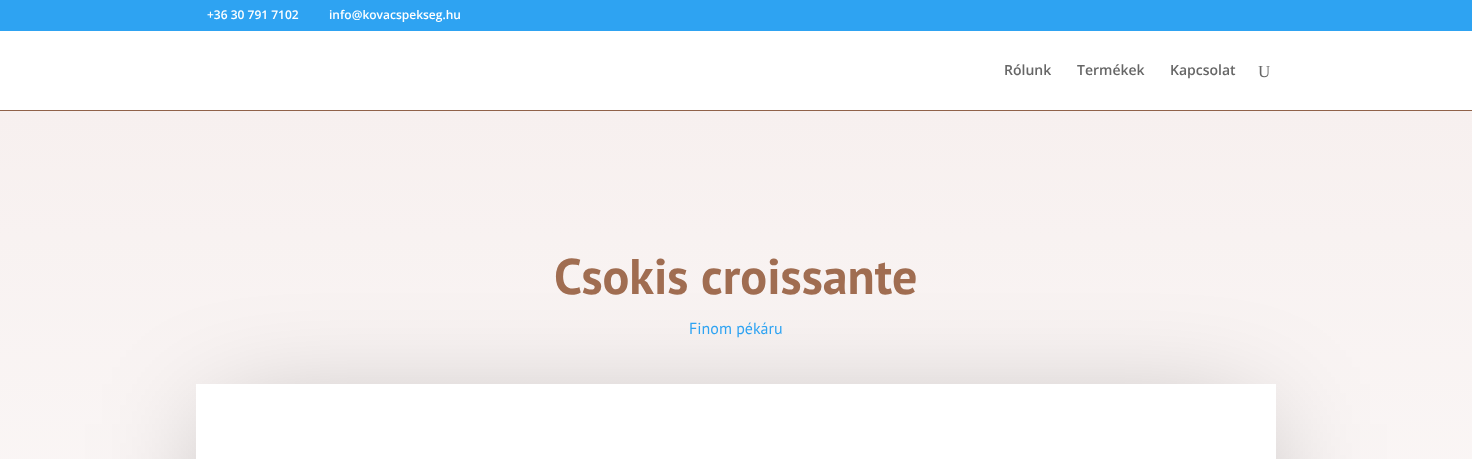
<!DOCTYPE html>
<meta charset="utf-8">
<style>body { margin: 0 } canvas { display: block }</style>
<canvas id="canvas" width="1472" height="459"></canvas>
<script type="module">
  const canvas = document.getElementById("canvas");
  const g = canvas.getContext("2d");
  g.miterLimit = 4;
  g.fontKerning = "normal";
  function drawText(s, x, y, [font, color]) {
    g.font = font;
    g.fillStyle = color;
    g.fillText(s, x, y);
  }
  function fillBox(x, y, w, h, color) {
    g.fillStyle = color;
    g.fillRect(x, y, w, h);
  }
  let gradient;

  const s1 = ["600 12px Open Sans", "#FFFFFF"];
  const s2 = ["600 14px Open Sans", "#666666"];
  const s3 = ["17px Liberation Serif", "#666666"];
  const s4 = ["bold 50px PT Sans", "#A06D51"];
  const s5 = ["16px PT Sans", "#2EA3F2"];

  fillBox(0, 0, 1472, 459, "#FFFFFF");
  fillBox(0, 0, 1472, 31, "#2EA3F2");
  drawText("+36 30 791 7102", 207, 19, s1);
  drawText("info@kovacspekseg.hu", 329, 19, s1);
  fillBox(0, 110, 1472, 1, "#906249");
  drawText("Rólunk", 1004, 75, s2);
  drawText("Termékek", 1077, 75, s2);
  drawText("Kapcsolat", 1170, 75, s2);
  drawText("U", 1258, 77, s3);
  gradient = g.createLinearGradient(736, 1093, 736, 111);
  gradient.addColorStop(0, "#FFFFFF");
  gradient.addColorStop(1, "#F7F0EF");
  g.fillStyle = gradient;
  g.fillRect(0, 111, 1472, 348);
  g.fillStyle = "rgba(0, 0, 0, 0.3)";
  g.filter = "blur(60px)";
  g.beginPath();
  g.rect(216, 424, 1040, 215);
  g.fill();
  g.filter = "none";
  fillBox(196, 384, 1080, 75, "#FFFFFF");
  drawText("Csokis croissante", 554, 294, s4);
  drawText("Finom pékáru", 689, 334, s5);
</script>
